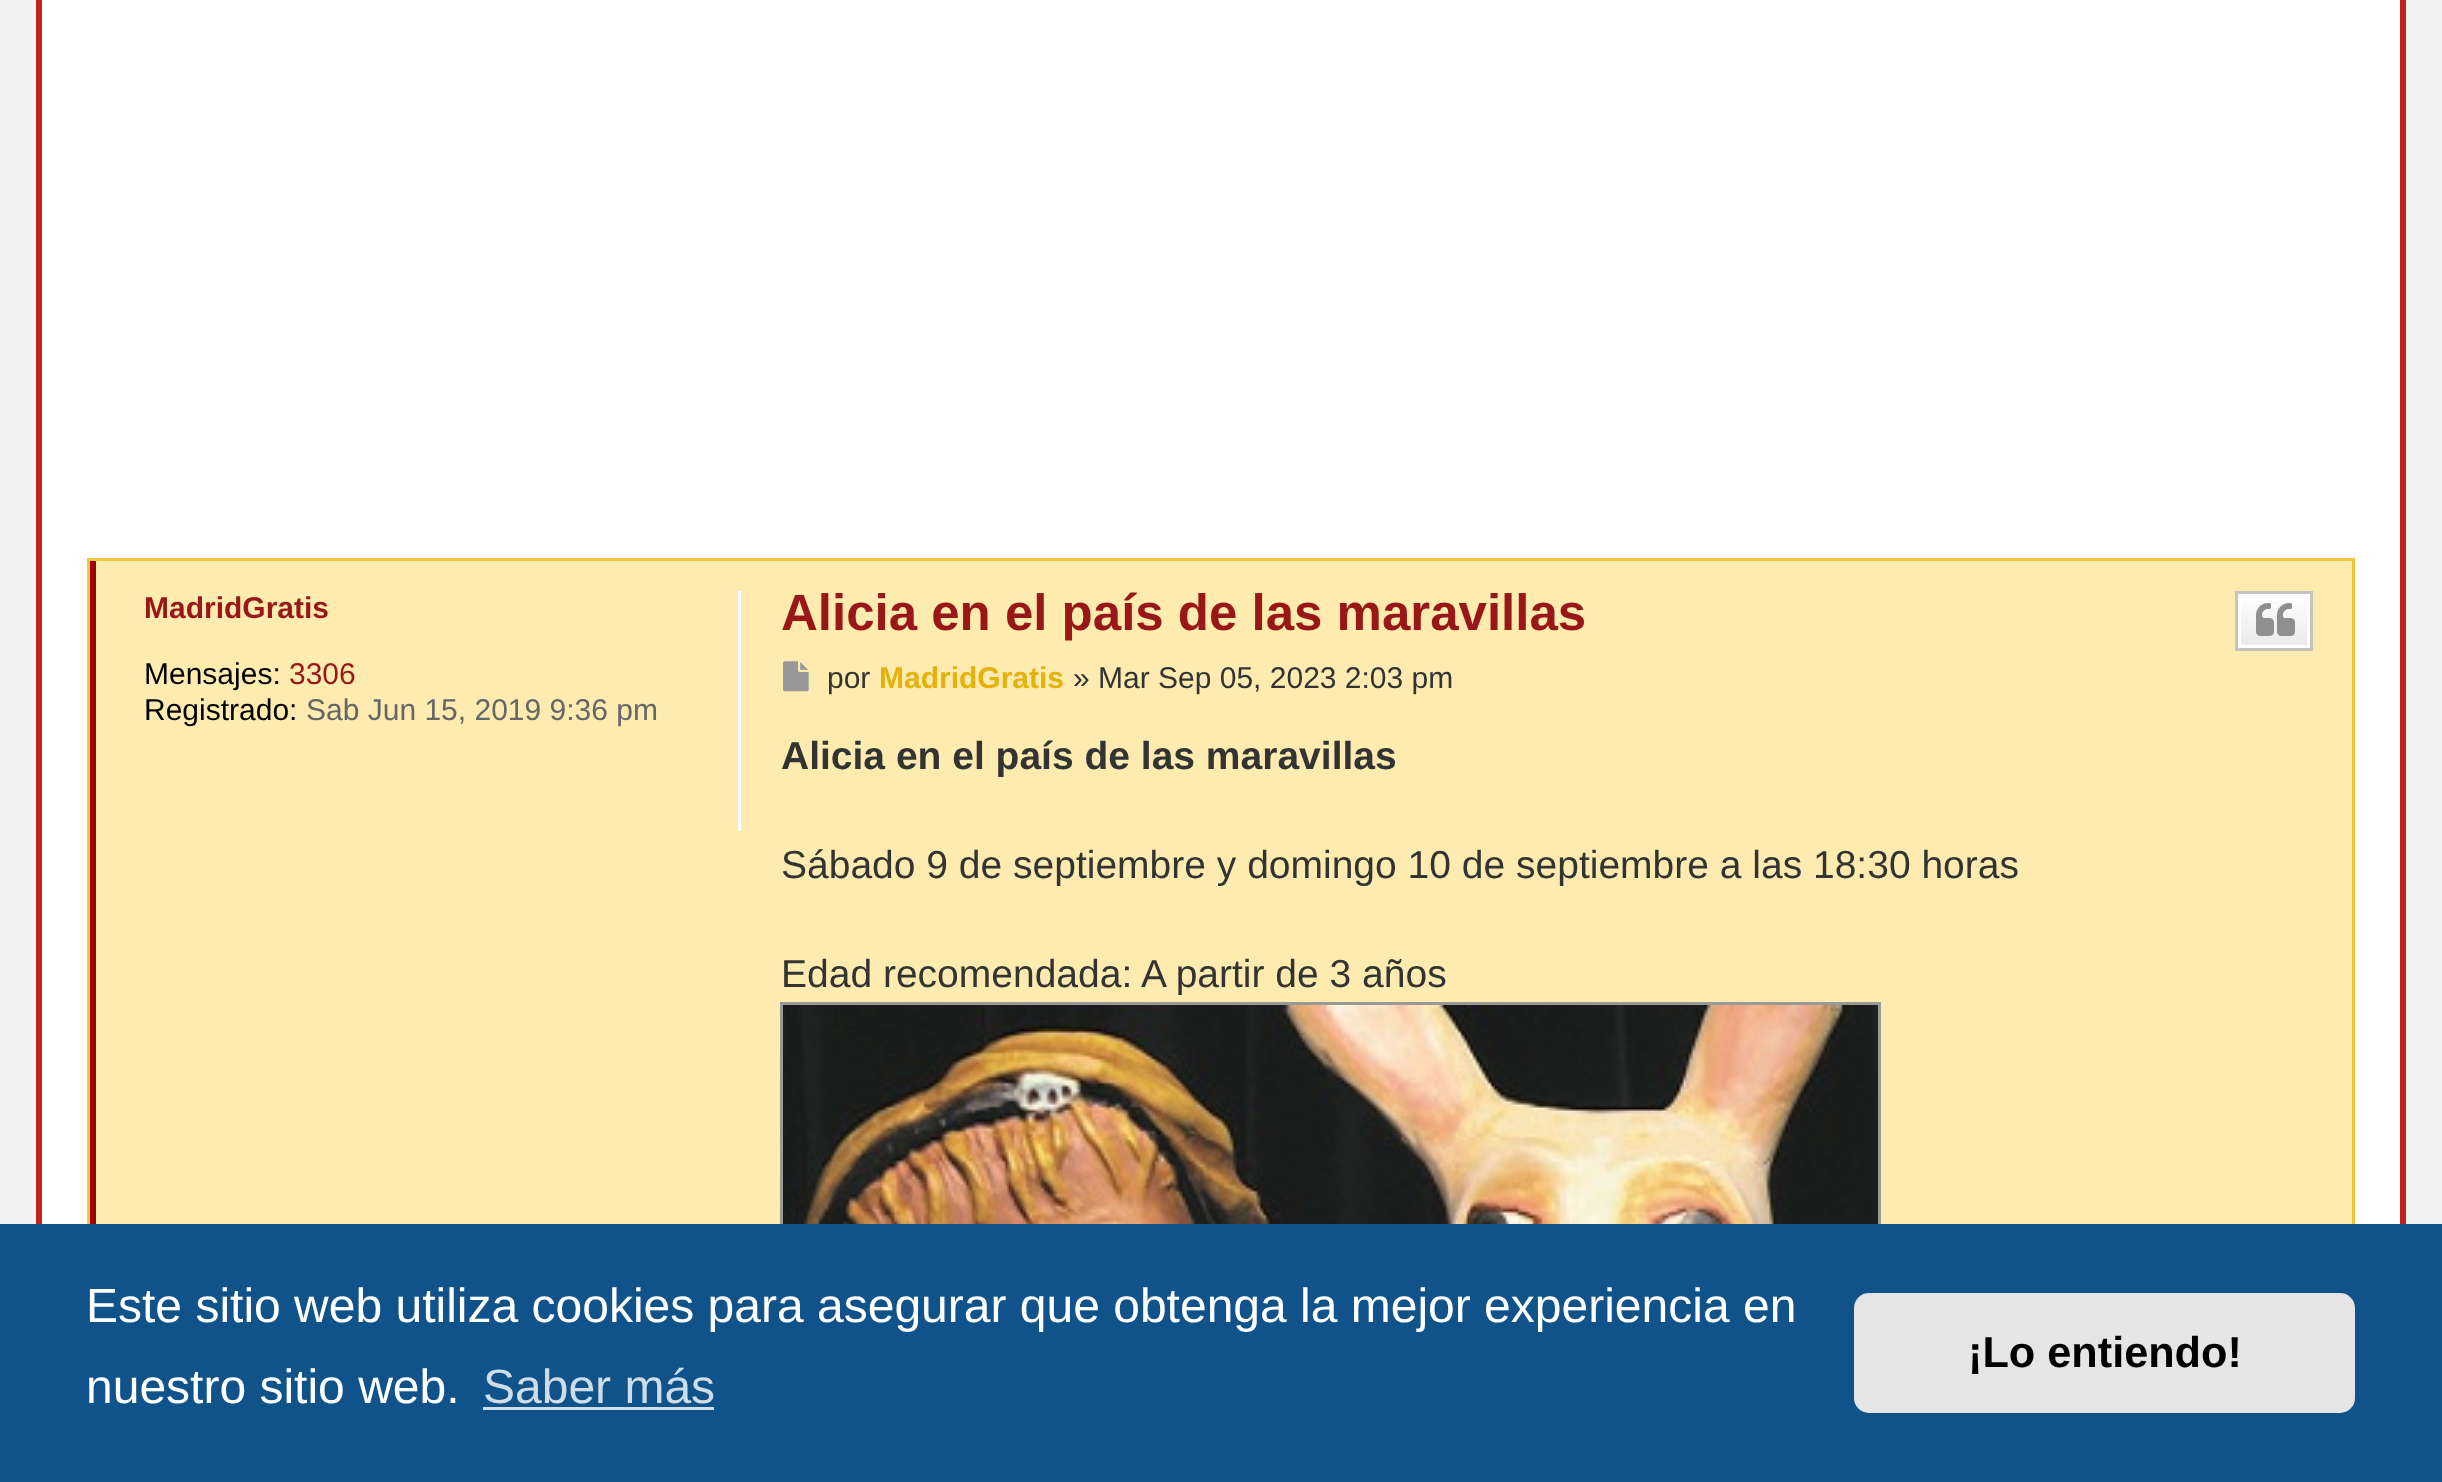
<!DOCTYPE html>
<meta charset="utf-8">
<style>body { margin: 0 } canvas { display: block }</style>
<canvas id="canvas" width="2442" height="1482"></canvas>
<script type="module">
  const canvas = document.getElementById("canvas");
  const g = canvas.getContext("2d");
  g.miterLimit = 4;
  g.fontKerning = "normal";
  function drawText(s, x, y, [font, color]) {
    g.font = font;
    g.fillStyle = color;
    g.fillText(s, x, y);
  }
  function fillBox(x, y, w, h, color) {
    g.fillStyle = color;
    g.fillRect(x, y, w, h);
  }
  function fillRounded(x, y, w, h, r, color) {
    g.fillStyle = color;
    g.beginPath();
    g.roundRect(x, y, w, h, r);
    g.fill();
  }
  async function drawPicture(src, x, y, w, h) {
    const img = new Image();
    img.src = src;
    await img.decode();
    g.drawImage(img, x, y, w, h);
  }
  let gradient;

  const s1 = ["bold 30px Liberation Sans", "#991717"];
  const s2 = ["30px Liberation Sans", "#000000"];
  const s3 = ["30px Liberation Sans", "#991717"];
  const s4 = ["30px Liberation Sans", "#666666"];
  const s5 = ["bold 51px Liberation Sans", "#991717"];
  const s6 = ["30px Liberation Sans", "#333333"];
  const s7 = ["bold 30px Liberation Sans", "#E5B10B"];
  const s8 = ["bold 39px Liberation Sans", "#333333"];
  const s9 = ["39px Liberation Sans", "#333333"];
  const s10 = ["48px Liberation Sans", "#FFFFFF"];
  const s11 = ["48px Liberation Sans", "#CFDDE8"];
  const s12 = ["bold 43.25px Liberation Sans", "#000000"];

  fillBox(0, 0, 2442, 1482, "#F2F2F2");
  fillBox(42, 0, 2358, 1224, "#FFFFFF");
  g.strokeStyle = "#C32020";
  g.lineWidth = 6;
  g.strokeRect(39, -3, 2364, 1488);
  fillBox(96, 561, 2256, 663, "#FEEBAF");
  fillBox(90, 558, 6, 666, "#9C0003");
  g.strokeStyle = "#F1C63F";
  g.lineWidth = 3;
  g.strokeRect(88.5, 559.5, 2265, 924);
  fillBox(738, 591, 3, 240, "#FFFFFF");
  drawText("MadridGratis", 144, 618, s1);
  drawText("Mensajes:", 144, 684, s2);
  drawText("3306", 289, 684, s3);
  drawText("Registrado:", 144, 720, s2);
  drawText("Sab Jun 15, 2019 9:36 pm", 306, 720, s4);
  drawText("Alicia en el país de las maravillas", 781, 630, s5);
  gradient = g.createLinearGradient(2274, 594, 2274, 648);
  gradient.addColorStop(0, "#FFFFFF");
  gradient.addColorStop(1, "#E9E9E9");
  g.fillStyle = gradient;
  g.fillRect(2241, 597, 66, 48);
  g.strokeStyle = "#FFFFFF";
  g.strokeRect(2239.5, 595.5, 69, 51);
  g.strokeStyle = "#C7C3BF";
  g.strokeRect(2236.5, 592.5, 75, 57);
  await drawPicture("pic1.png", 2256, 603, 39, 33);
  await drawPicture("pic2.png", 783, 661, 26, 31);
  drawText("por", 827, 688, s6);
  drawText("MadridGratis", 879, 688, s7);
  drawText("» Mar Sep 05, 2023 2:03 pm", 1073, 688, s6);
  drawText("Alicia en el país de las maravillas", 781, 769, s8);
  drawText("Sábado 9 de septiembre y domingo 10 de septiembre a las 18:30 horas", 781, 878, s9);
  drawText("Edad recomendada: A partir de 3 años", 781, 987, s9);
  g.strokeStyle = "#999999";
  g.strokeRect(781.5, 1003.5, 1098, 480);
  await drawPicture("pic3.png", 783, 1005, 1095, 219);
  fillBox(0, 1224, 2442, 258, "#0F538A");
  drawText("Este sitio web utiliza cookies para asegurar que obtenga la mejor experiencia en", 86, 1322, s10);
  drawText("nuestro sitio web.", 86, 1403, s10);
  drawText("Saber más", 483, 1403, s11);
  fillBox(483, 1407, 231, 3, "#CFDDE8");
  fillRounded(1854, 1293, 501, 120, 15, "#E5E5E5");
  drawText("¡Lo entiendo!", 1968, 1367, s12);
</script>
